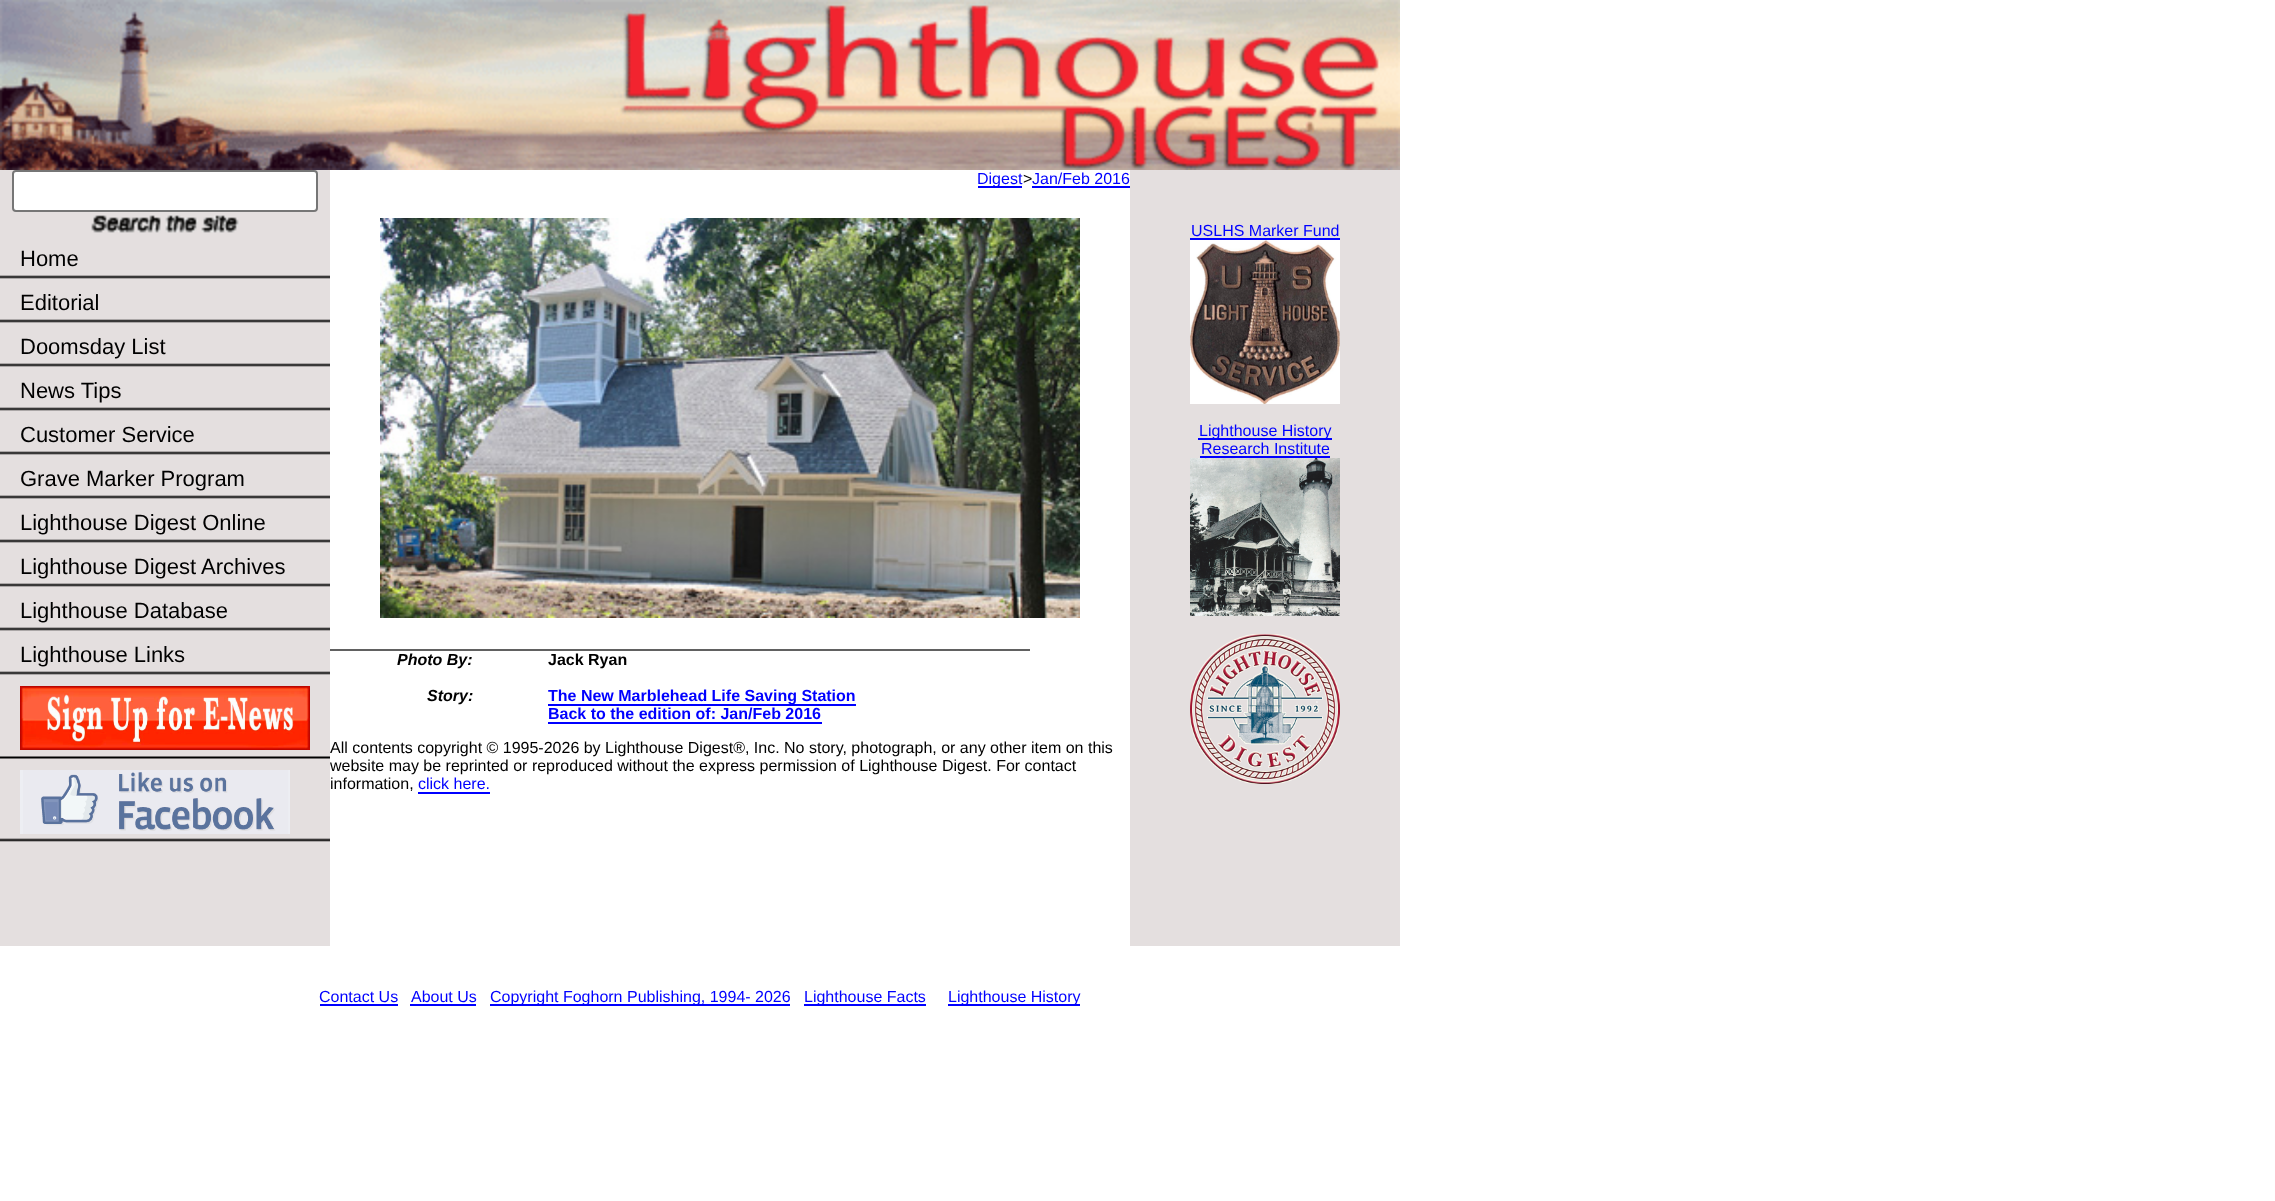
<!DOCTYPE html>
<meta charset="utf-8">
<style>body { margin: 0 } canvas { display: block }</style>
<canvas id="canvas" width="2275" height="1201"></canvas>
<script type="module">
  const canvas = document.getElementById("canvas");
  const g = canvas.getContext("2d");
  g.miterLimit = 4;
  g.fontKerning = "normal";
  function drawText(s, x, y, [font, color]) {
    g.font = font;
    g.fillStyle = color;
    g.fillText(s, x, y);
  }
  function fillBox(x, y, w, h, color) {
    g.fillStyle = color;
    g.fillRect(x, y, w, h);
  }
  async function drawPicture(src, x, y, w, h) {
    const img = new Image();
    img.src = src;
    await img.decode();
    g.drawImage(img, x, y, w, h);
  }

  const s1 = ["22px Liberation Sans", "#000000"];
  const s2 = ["16px Liberation Sans", "#0000FF"];
  const s3 = ["16px Liberation Sans", "#000000"];
  const s4 = ["italic bold 16px Liberation Sans", "#000000"];
  const s5 = ["bold 16px Liberation Sans", "#000000"];
  const s6 = ["bold 16px Liberation Sans", "#0000FF"];

  fillBox(0, 0, 2275, 1201, "#FFFFFF");
  await drawPicture("pic1.png", 0, 0, 1400, 170);
  fillBox(0, 170, 330, 776, "#E4DFDF");
  g.fillStyle = "#FFFFFF";
  g.beginPath();
  g.roundRect(13, 171, 304, 40, 3);
  g.fill();
  g.strokeStyle = "#767676";
  g.lineWidth = 2;
  g.stroke();
  await drawPicture("pic2.png", 91, 215, 148, 18);
  await drawPicture("pic3.png", 0, 236, 330, 44);
  drawText("Home", 20, 266, s1);
  await drawPicture("pic3.png", 0, 280, 330, 44);
  drawText("Editorial", 20, 310, s1);
  await drawPicture("pic3.png", 0, 324, 330, 44);
  drawText("Doomsday List", 20, 354, s1);
  await drawPicture("pic3.png", 0, 368, 330, 44);
  drawText("News Tips", 20, 398, s1);
  await drawPicture("pic3.png", 0, 412, 330, 44);
  drawText("Customer Service", 20, 442, s1);
  await drawPicture("pic3.png", 0, 456, 330, 44);
  drawText("Grave Marker Program", 20, 486, s1);
  await drawPicture("pic3.png", 0, 500, 330, 44);
  drawText("Lighthouse Digest Online", 20, 530, s1);
  await drawPicture("pic3.png", 0, 544, 330, 44);
  drawText("Lighthouse Digest Archives", 20, 574, s1);
  await drawPicture("pic3.png", 0, 588, 330, 44);
  drawText("Lighthouse Database", 20, 618, s1);
  await drawPicture("pic3.png", 0, 632, 330, 44);
  drawText("Lighthouse Links", 20, 662, s1);
  await drawPicture("pic4.png", 0, 676, 330, 84);
  await drawPicture("pic5.png", 20, 686, 290, 64);
  await drawPicture("pic6.png", 0, 760, 330, 84);
  await drawPicture("pic7.png", 20, 770, 270, 64);
  fillBox(978, 186, 44, 2, "#0000FF");
  drawText("Digest", 977, 184, s2);
  drawText(">", 1023, 184, s3);
  drawText("Jan/Feb 2016", 1032, 184, s2);
  fillBox(1032, 186, 98, 2, "#0000FF");
  await drawPicture("pic8.png", 380, 218, 700, 400);
  fillBox(330, 649, 700, 2, "#616161");
  drawText("Photo By:", 397, 665, s4);
  drawText("Jack Ryan", 548, 665, s5);
  drawText("Story:", 427, 701, s4);
  fillBox(548, 704, 308, 2, "#0000FF");
  drawText("The New Marblehead Life Saving Station", 548, 701, s6);
  drawText("Back to the edition of: Jan/Feb 2016", 548, 719, s6);
  fillBox(548, 722, 274, 2, "#0000FF");
  drawText("All contents copyright © 1995-2026 by Lighthouse Digest®, Inc. No story, photograph, or any other item on this", 330, 753, s3);
  drawText("website may be reprinted or reproduced without the express permission of Lighthouse Digest. For contact", 330, 771, s3);
  drawText("information,", 330, 789, s3);
  drawText("click here.", 418, 789, s2);
  fillBox(418, 792, 72, 2, "#0000FF");
  fillBox(1130, 170, 270, 776, "#E4DFDF");
  drawText("USLHS Marker Fund", 1191, 236, s2);
  fillBox(1190, 238, 150, 2, "#0000FF");
  await drawPicture("pic9.png", 1190, 240, 150, 164);
  fillBox(1198, 438, 134, 2, "#0000FF");
  drawText("Lighthouse History", 1199, 436, s2);
  drawText("Research Institute", 1201, 454, s2);
  fillBox(1200, 456, 130, 2, "#0000FF");
  await drawPicture("pic10.png", 1190, 458, 150, 158);
  await drawPicture("pic11.png", 1190, 634, 150, 150);
  drawText("Contact Us", 319, 1002, s2);
  fillBox(320, 1004, 78, 2, "#0000FF");
  drawText("About Us", 411, 1002, s2);
  fillBox(410, 1004, 66, 2, "#0000FF");
  fillBox(490, 1004, 300, 2, "#0000FF");
  drawText("Copyright Foghorn Publishing, 1994- 2026", 490, 1002, s2);
  fillBox(804, 1004, 122, 2, "#0000FF");
  drawText("Lighthouse Facts", 804, 1002, s2);
  fillBox(948, 1004, 132, 2, "#0000FF");
  drawText("Lighthouse History", 948, 1002, s2);
</script>
